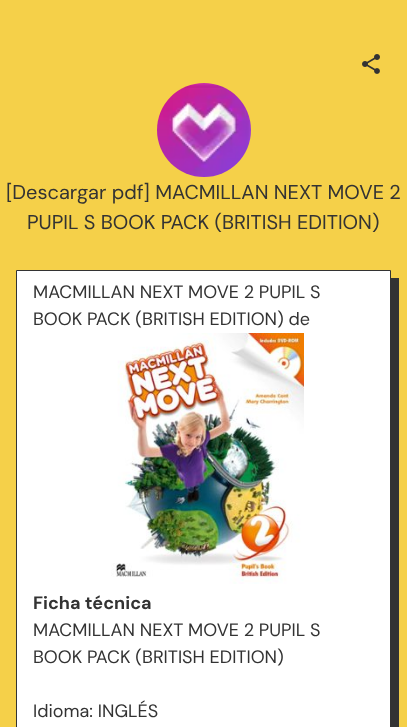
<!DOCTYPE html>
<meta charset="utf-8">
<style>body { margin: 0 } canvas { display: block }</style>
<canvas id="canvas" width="407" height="727"></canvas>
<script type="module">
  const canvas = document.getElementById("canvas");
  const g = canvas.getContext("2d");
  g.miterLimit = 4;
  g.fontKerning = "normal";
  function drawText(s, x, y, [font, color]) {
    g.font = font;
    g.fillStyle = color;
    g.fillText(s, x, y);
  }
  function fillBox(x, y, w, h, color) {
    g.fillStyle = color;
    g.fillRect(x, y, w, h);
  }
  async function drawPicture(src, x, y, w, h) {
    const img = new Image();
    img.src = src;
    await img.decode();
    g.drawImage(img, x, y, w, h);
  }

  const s1 = ["20px DM Sans", "#333333"];
  const s2 = ["18px DM Sans", "#333333"];
  const s3 = ["bold 18px DM Sans", "#333333"];

  fillBox(0, 0, 407, 727, "#F5D049");
  await drawPicture("pic1.png", 362, 54, 18, 20);
  await drawPicture("pic2.png", 157, 83, 94, 94);
  drawText("[Descargar pdf] MACMILLAN NEXT MOVE 2", 6, 199, s1);
  drawText("PUPIL S BOOK PACK (BRITISH EDITION)", 27, 229, s1);
  g.beginPath();
  g.moveTo(24, 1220);
  g.lineTo(24, 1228);
  g.lineTo(399, 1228);
  g.lineTo(399, 278);
  g.lineTo(391, 278);
  g.lineTo(391, 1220);
  g.closePath();
  g.fill();
  g.fillStyle = "#FFFFFF";
  g.beginPath();
  g.rect(16.5, 270.5, 374, 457);
  g.fill();
  g.strokeStyle = "#333333";
  g.stroke();
  drawText("MACMILLAN NEXT MOVE 2 PUPIL S", 33, 298, s2);
  drawText("BOOK PACK (BRITISH EDITION) de", 33, 325, s2);
  await drawPicture("pic3.png", 111, 333, 193, 251);
  drawText("Ficha técnica", 33, 609, s3);
  drawText("MACMILLAN NEXT MOVE 2 PUPIL S", 33, 636, s2);
  drawText("BOOK PACK (BRITISH EDITION)", 33, 663, s2);
  drawText("Idioma: INGLÉS", 33, 717, s2);
</script>
